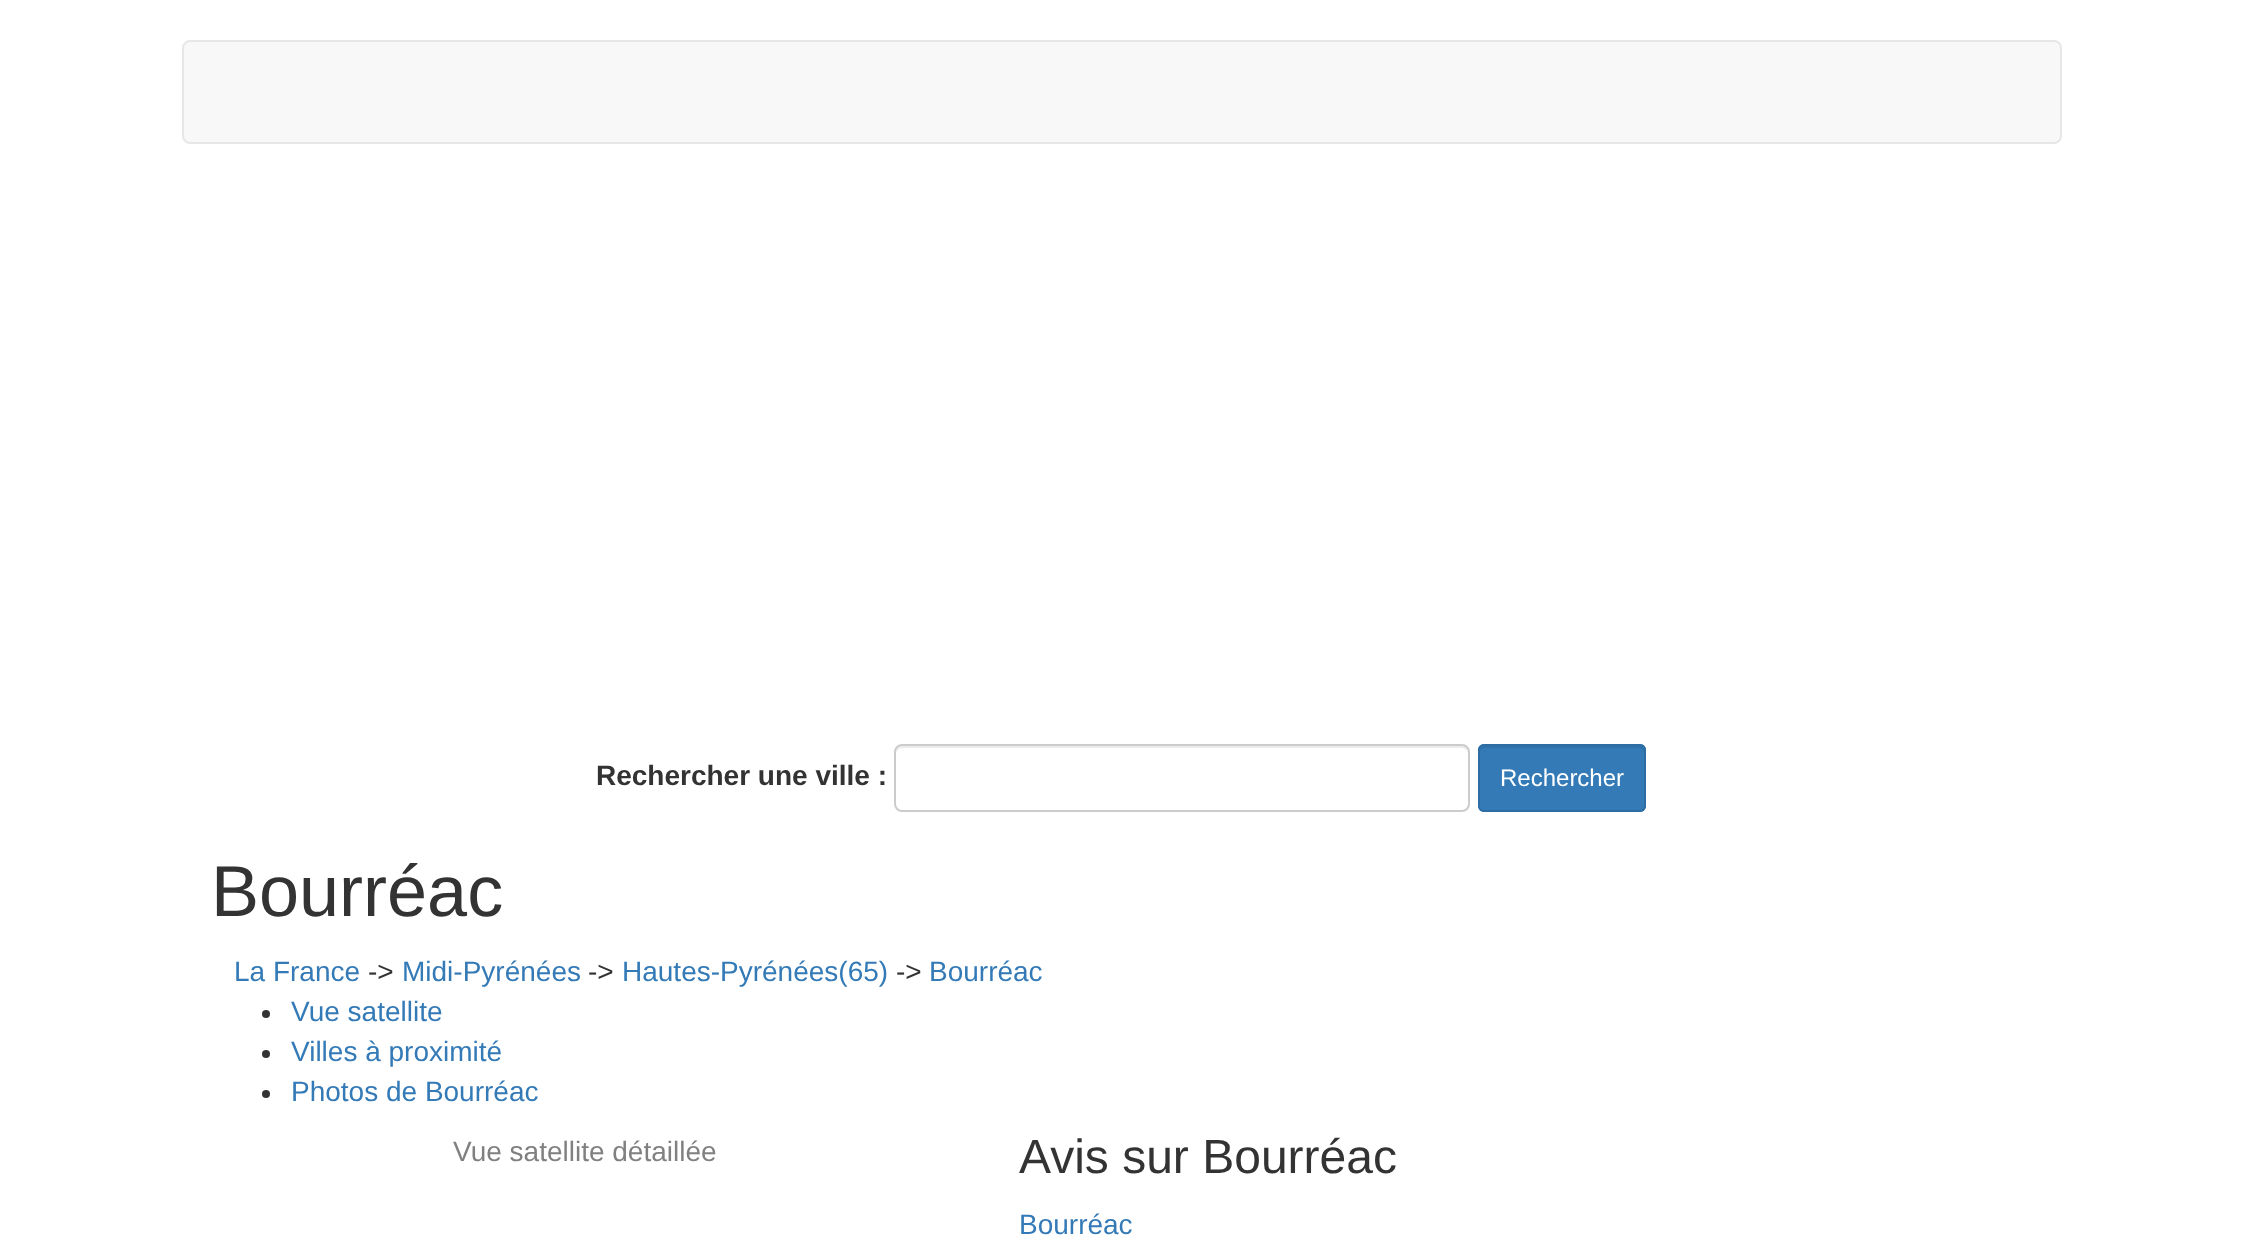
<!DOCTYPE html>
<meta charset="utf-8">
<style>body { margin: 0 } canvas { display: block }</style>
<canvas id="canvas" width="2241" height="1248"></canvas>
<script type="module">
  const canvas = document.getElementById("canvas");
  const g = canvas.getContext("2d");
  g.miterLimit = 4;
  g.fontKerning = "normal";
  function drawText(s, x, y, [font, color]) {
    g.font = font;
    g.fillStyle = color;
    g.fillText(s, x, y);
  }
  function fillBox(x, y, w, h, color) {
    g.fillStyle = color;
    g.fillRect(x, y, w, h);
  }
  function fillRounded(x, y, w, h, r, color) {
    g.fillStyle = color;
    g.beginPath();
    g.roundRect(x, y, w, h, r);
    g.fill();
  }

  const s1 = ["bold 28px Liberation Sans", "#333333"];
  const s2 = ["24px Liberation Sans", "#FFFFFF"];
  const s3 = ["72px Liberation Sans", "#333333"];
  const s4 = ["28px Liberation Sans", "#337AB7"];
  const s5 = ["28px Liberation Sans", "#333333"];
  const s6 = ["28px Liberation Sans", "#808080"];
  const s7 = ["48px Liberation Sans", "#333333"];

  fillBox(0, 0, 2241, 1248, "#FFFFFF");
  g.fillStyle = "#F8F8F8";
  g.beginPath();
  g.roundRect(183, 41, 1878, 102, 7);
  g.fill();
  g.strokeStyle = "#E7E7E7";
  g.lineWidth = 2;
  g.stroke();
  drawText("Rechercher une ville :", 596, 785, s1);
  g.fillStyle = "#ECECEC";
  g.beginPath();
  g.moveTo(902, 748);
  g.lineTo(1462, 748);
  g.bezierCurveTo(1465, 748, 1468, 751, 1468, 754);
  g.bezierCurveTo(1468, 750, 1467, 746, 1462, 746);
  g.lineTo(902, 746);
  g.bezierCurveTo(897, 746, 896, 750, 896, 754);
  g.bezierCurveTo(896, 751, 899, 748, 902, 748);
  g.closePath();
  g.fill();
  g.beginPath();
  g.roundRect(895, 745, 574, 66, 7);
  g.strokeStyle = "#CCCCCC";
  g.stroke();
  fillRounded(1478, 744, 168, 68, 6, "#337AB7");
  g.fillStyle = "#2F71A9";
  g.beginPath();
  g.moveTo(1484, 748);
  g.lineTo(1640, 748);
  g.bezierCurveTo(1642, 748, 1644, 750, 1644, 752);
  g.lineTo(1644, 750);
  g.bezierCurveTo(1644, 748, 1642, 746, 1640, 746);
  g.lineTo(1484, 746);
  g.bezierCurveTo(1482, 746, 1480, 748, 1480, 750);
  g.lineTo(1480, 752);
  g.bezierCurveTo(1480, 750, 1482, 748, 1484, 748);
  g.closePath();
  g.fill();
  g.beginPath();
  g.roundRect(1479, 745, 166, 66, 5);
  g.strokeStyle = "#2E6DA4";
  g.stroke();
  drawText("Rechercher", 1500, 786, s2);
  drawText("Bourréac", 211, 916, s3);
  drawText("La France", 234, 981, s4);
  drawText("->", 368, 981, s5);
  drawText("Midi-Pyrénées", 402, 981, s4);
  drawText("->", 588, 981, s5);
  drawText("Hautes-Pyrénées(65)", 622, 981, s4);
  drawText("->", 896, 981, s5);
  drawText("Bourréac", 929, 981, s4);
  g.fillStyle = "#333333";
  g.beginPath();
  g.arc(266, 1014, 4, 0, Math.PI * 2);
  g.fill();
  drawText("Vue satellite", 291, 1021, s4);
  g.fillStyle = "#333333";
  g.beginPath();
  g.arc(266, 1054, 4, 0, Math.PI * 2);
  g.fill();
  drawText("Villes à proximité", 291, 1061, s4);
  g.fillStyle = "#333333";
  g.beginPath();
  g.arc(266, 1094, 4, 0, Math.PI * 2);
  g.fill();
  drawText("Photos de Bourréac", 291, 1101, s4);
  drawText("Vue satellite détaillée", 453, 1161, s6);
  drawText("Avis sur Bourréac", 1019, 1173, s7);
  drawText("Bourréac", 1019, 1234, s4);
</script>
